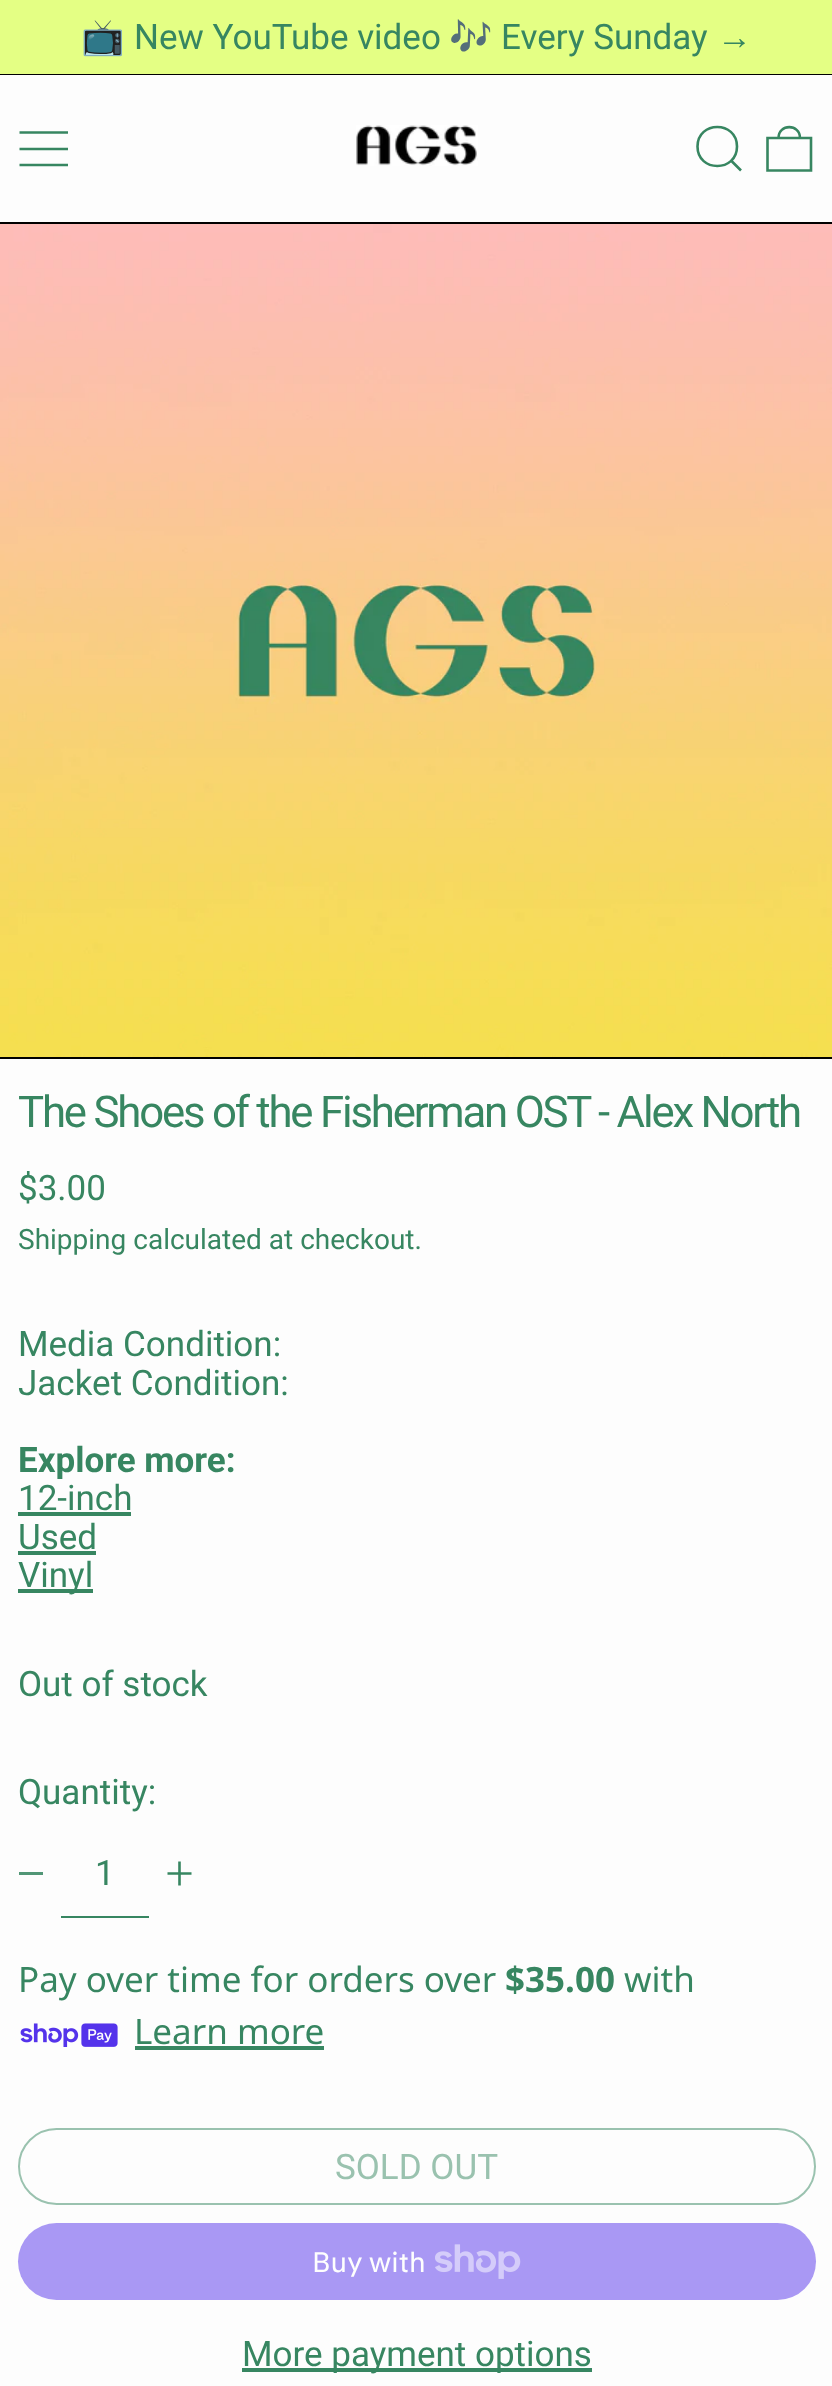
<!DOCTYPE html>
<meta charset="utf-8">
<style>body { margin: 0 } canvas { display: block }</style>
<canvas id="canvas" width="832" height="2386"></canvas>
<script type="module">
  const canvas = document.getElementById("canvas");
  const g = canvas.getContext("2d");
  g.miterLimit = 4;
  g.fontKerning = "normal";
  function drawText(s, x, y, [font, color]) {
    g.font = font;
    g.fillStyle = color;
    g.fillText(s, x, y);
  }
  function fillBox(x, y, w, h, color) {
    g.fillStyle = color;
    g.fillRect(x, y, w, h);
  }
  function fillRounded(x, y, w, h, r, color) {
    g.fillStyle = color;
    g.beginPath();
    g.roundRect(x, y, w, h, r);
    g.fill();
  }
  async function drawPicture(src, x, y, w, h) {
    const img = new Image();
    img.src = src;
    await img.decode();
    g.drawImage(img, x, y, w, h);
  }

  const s1 = ["35px Noto Color Emoji", "#378661"];
  const s2 = ["35px Roboto", "#378661"];
  const s3 = ["35px Liberation Sans", "#378661"];
  const s4 = ["43.75px Roboto", "#378661"];
  const s5 = ["28px Roboto", "#378661"];
  const s6 = ["bold 35px Roboto", "#378661"];
  const s7 = ["35px Noto Sans", "#378661"];
  const s8 = ["bold 35px Noto Sans", "#378661"];
  const s9 = ["35px Roboto", "#9AC2AF"];
  const s10 = ["28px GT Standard", "#FEFEFE"];

  fillBox(0, 0, 832, 2386, "#FDFDFD");
  fillBox(0, 0, 832, 74, "#E4FF84");
  fillBox(0, 74, 832, 1, "#000000");
  drawText("📺", 81, 49, s1);
  drawText("New YouTube video", 134, 49, s2);
  drawText("🎶", 449, 49, s1);
  drawText("Every Sunday", 501, 49, s2);
  drawText("→", 717, 49, s3);
  fillBox(0, 222, 832, 2, "#000000");
  g.beginPath();
  g.moveTo(19.5, 132.5);
  g.lineTo(68, 132.5);
  g.moveTo(19.5, 149);
  g.lineTo(68, 149);
  g.moveTo(19.5, 165);
  g.lineTo(68, 165);
  g.strokeStyle = "#378661";
  g.lineWidth = 2.6;
  g.stroke();
  await drawPicture("pic1.png", 356, 125, 122, 41);
  g.beginPath();
  g.moveTo(697.5, 146.5);
  g.bezierCurveTo(697.5, 172.5, 737, 172.5, 737, 146.5);
  g.bezierCurveTo(737, 120.5, 697.5, 120.5, 697.5, 146.5);
  g.closePath();
  g.moveTo(731, 160.5);
  g.lineTo(741, 170.5);
  g.stroke();
  g.beginPath();
  g.moveTo(767.5, 138);
  g.lineTo(811, 138);
  g.lineTo(811, 170.5);
  g.lineTo(767.5, 170.5);
  g.closePath();
  g.moveTo(800, 138);
  g.bezierCurveTo(800, 123.5, 778.5, 123.5, 778.5, 138);
  g.stroke();
  fillBox(0, 1057, 832, 2, "#000000");
  await drawPicture("pic2.png", 0, 224, 832, 833);
  g.letterSpacing = "-2.2px";
  drawText("The Shoes of the Fisherman OST - Alex North", 18, 1127, s4);
  g.letterSpacing = "0px";
  drawText("$3.00", 18, 1200, s2);
  drawText("Shipping calculated at checkout.", 18, 1249, s5);
  drawText("Media Condition:", 18, 1356, s2);
  drawText("Jacket Condition:", 18, 1395, s2);
  drawText("Explore more:", 18, 1472, s6);
  drawText("12-inch", 18, 1510, s2);
  fillBox(18, 1512, 113, 4, "#378661");
  drawText("Used", 18, 1549, s2);
  fillBox(18, 1551, 78, 4, "#378661");
  fillBox(18, 1589, 75, 4, "#378661");
  drawText("Vinyl", 18, 1587, s2);
  drawText("Out of stock", 18, 1696, s2);
  drawText("Quantity:", 18, 1804, s2);
  fillBox(19, 1872, 24, 3, "#519676");
  fillBox(61, 1916, 88, 2, "#378661");
  drawText("1", 95, 1885, s2);
  g.beginPath();
  g.moveTo(179.5, 1861.5);
  g.lineTo(179.5, 1885.5);
  g.moveTo(167.5, 1873.5);
  g.lineTo(191.5, 1873.5);
  g.stroke();
  drawText("Pay over time for orders over", 18, 1992, s7);
  drawText("$35.00", 505, 1992, s8);
  drawText("with", 624, 1992, s7);
  await drawPicture("pic3.png", 20, 2023, 98, 24);
  drawText("Learn more", 134, 2044, s7);
  fillBox(135, 2046, 189, 4, "#378661");
  g.beginPath();
  g.roundRect(19, 2129, 796, 75, 37.5);
  g.strokeStyle = "#9AC2AF";
  g.lineWidth = 2;
  g.stroke();
  drawText("SOLD OUT", 335, 2179, s9);
  fillRounded(18, 2223, 798, 77, 38.5, "#A998F4");
  drawText("Buy with", 312, 2272, s10);
  await drawPicture("pic4.png", 435, 2244, 86, 35);
  fillBox(242, 2368, 350, 4, "#378661");
  drawText("More payment options", 242, 2366, s2);
</script>
